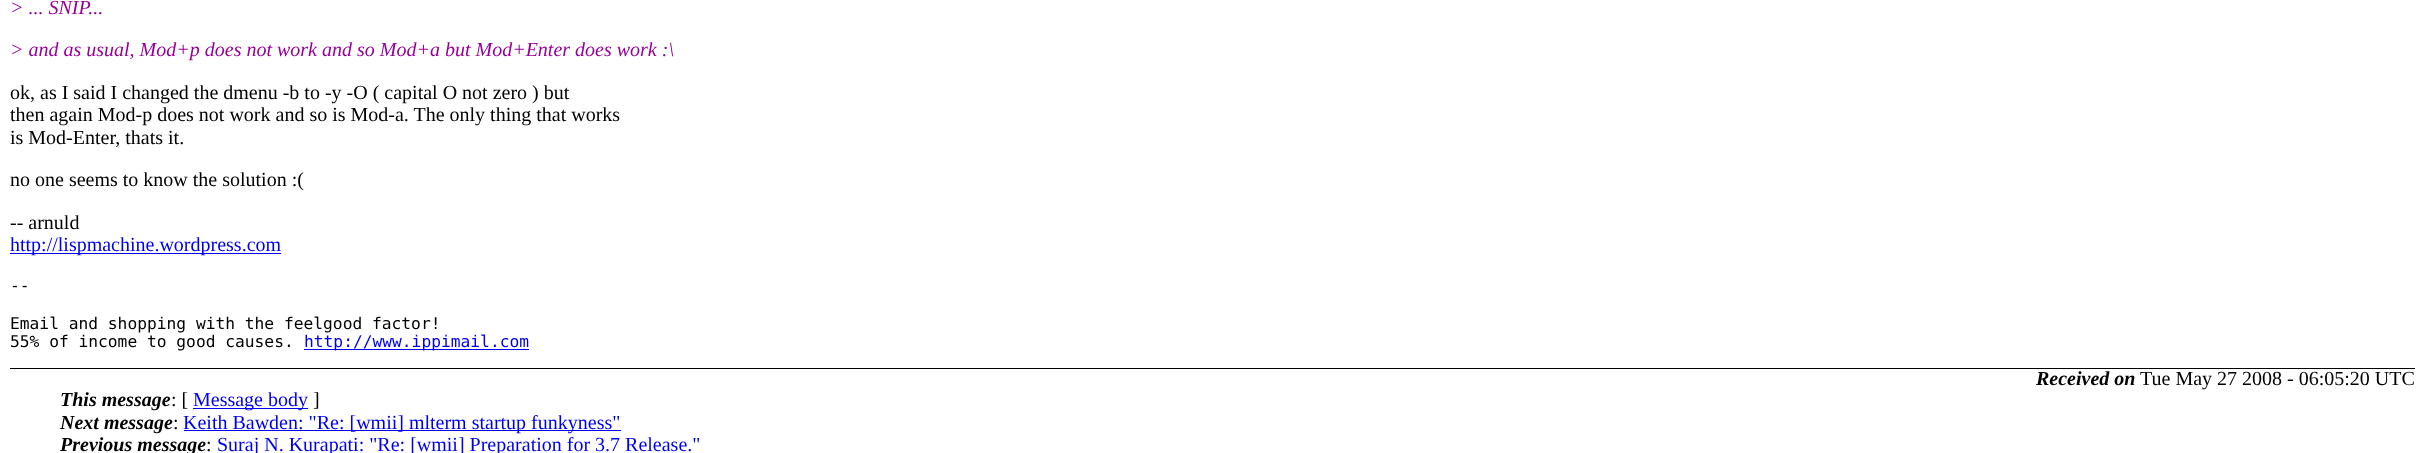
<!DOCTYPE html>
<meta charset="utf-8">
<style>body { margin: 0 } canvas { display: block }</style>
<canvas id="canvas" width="2424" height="453"></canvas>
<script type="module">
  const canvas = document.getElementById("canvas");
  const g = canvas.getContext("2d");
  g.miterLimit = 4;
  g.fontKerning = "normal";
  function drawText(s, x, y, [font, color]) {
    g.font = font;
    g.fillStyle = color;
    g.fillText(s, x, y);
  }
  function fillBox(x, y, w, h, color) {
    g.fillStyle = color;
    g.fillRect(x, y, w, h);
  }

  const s1 = ["italic 20px Liberation Serif", "#990099"];
  const s2 = ["20px Liberation Serif", "#000000"];
  const s3 = ["20px Liberation Serif", "#0000EE"];
  const s4 = ["16.25px DejaVu Sans Mono", "#000000"];
  const s5 = ["16.25px DejaVu Sans Mono", "#0000EE"];
  const s6 = ["italic bold 20px Liberation Serif", "#000000"];

  fillBox(0, 0, 2424, 453, "#FFFFFF");
  drawText("> ... SNIP...", 10, 14, s1);
  drawText("> and as usual, Mod+p does not work and so Mod+a but Mod+Enter does work :\\", 10, 56, s1);
  drawText("ok, as I said I changed the dmenu -b to -y -O ( capital O not zero ) but", 10, 99, s2);
  drawText("then again Mod-p does not work and so is Mod-a. The only thing that works", 10, 121, s2);
  drawText("is Mod-Enter, thats it.", 10, 144, s2);
  drawText("no one seems to know the solution :(", 10, 186, s2);
  drawText("-- arnuld", 10, 229, s2);
  fillBox(10, 253, 271, 1, "#0000EE");
  drawText("http://lispmachine.wordpress.com", 10, 251, s3);
  drawText("--", 10, 291, s4);
  drawText("Email and shopping with the feelgood factor!", 10, 329, s4);
  drawText("55% of income to good causes.", 10, 347, s4);
  fillBox(304, 349, 225, 1, "#0000EE");
  drawText("http://www.ippimail.com", 304, 347, s5);
  drawText("Received on", 2036, 385, s6);
  drawText("Tue May 27 2008 - 06:05:20 UTC", 2140, 385, s2);
  fillBox(10, 368, 2405, 1, "#000000");
  drawText("This message", 60, 406, s6);
  drawText(": [", 171, 406, s2);
  fillBox(193, 408, 115, 1, "#0000EE");
  drawText("Message body", 193, 406, s3);
  drawText("]", 313, 406, s2);
  drawText("Next message", 60, 429, s6);
  drawText(":", 173, 429, s2);
  fillBox(184, 430, 437, 1, "#0000EE");
  drawText("Keith Bawden: \"Re: [wmii] mlterm startup funkyness\"", 183, 429, s3);
  drawText("Previous message", 60, 451, s6);
  drawText(":", 206, 451, s2);
  drawText("Suraj N. Kurapati: \"Re: [wmii] Preparation for 3.7 Release.\"", 217, 451, s3);
</script>
